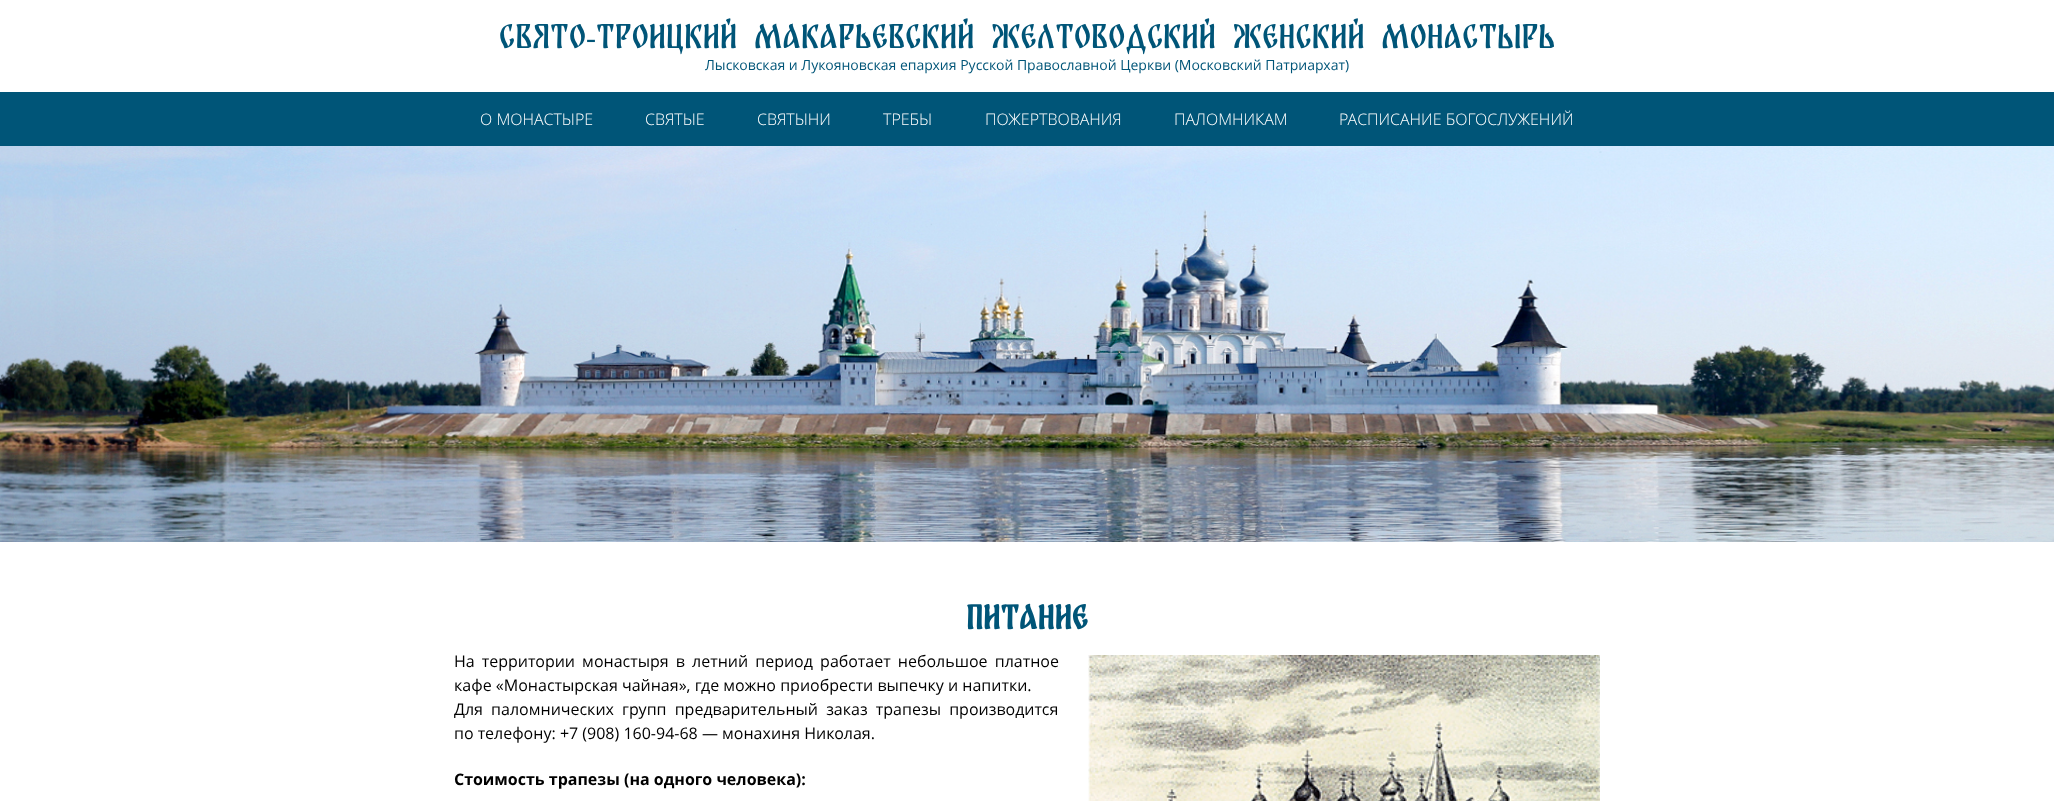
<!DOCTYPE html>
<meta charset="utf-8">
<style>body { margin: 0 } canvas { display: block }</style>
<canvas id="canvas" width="2054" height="801"></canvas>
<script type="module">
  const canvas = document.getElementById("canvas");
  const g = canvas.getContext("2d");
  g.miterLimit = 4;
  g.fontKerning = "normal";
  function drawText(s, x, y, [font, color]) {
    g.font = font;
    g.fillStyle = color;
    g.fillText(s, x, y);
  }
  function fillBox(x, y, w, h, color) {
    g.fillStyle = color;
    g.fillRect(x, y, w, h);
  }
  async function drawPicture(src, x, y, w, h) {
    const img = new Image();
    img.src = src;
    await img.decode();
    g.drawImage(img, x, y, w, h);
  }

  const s1 = ["30px 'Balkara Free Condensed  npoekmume'", "#005578"];
  const s2 = ["30px Liberation Serif", "#005578"];
  const s3 = ["14px Open Sans", "#005578"];
  const s4 = ["300 16px Open Sans", "#FFFFFF"];
  const s5 = ["bold 30px 'Balkara Free Condensed  npoekmume'", "#005578"];
  const s6 = ["16px Open Sans", "#000000"];
  const s7 = ["bold 16px Open Sans", "#000000"];

  fillBox(0, 0, 2054, 801, "#FFFFFF");
  drawText("Свято", 499, 48, s1);
  drawText("-", 586, 48, s2);
  drawText("Троицкий Макарьевский Желтоводский ЖЕНСКИЙ монастырь", 596, 48, s1);
  drawText("Лысковская и Лукояновская епархия Русской Православной Церкви (Московский Патриархат)", 705, 70, s3);
  fillBox(0, 92, 2054, 54, "#005578");
  drawText("О МОНАСТЫРЕ", 480, 125, s4);
  drawText("СВЯТЫЕ", 645, 125, s4);
  drawText("СВЯТЫНИ", 757, 125, s4);
  drawText("ТРЕБЫ", 883, 125, s4);
  drawText("ПОЖЕРТВОВАНИЯ", 985, 125, s4);
  drawText("ПАЛОМНИКАМ", 1174, 125, s4);
  drawText("РАСПИСАНИЕ БОГОСЛУЖЕНИЙ", 1339, 125, s4);
  await drawPicture("pic1.png", 0, 146, 2054, 396);
  drawText("Питание", 966, 629, s5);
  g.wordSpacing = "3px";
  drawText("На территории монастыря в летний период работает небольшое платное", 454, 667, s6);
  g.wordSpacing = "0px";
  drawText("кафе «Монастырская чайная», где можно приобрести выпечку и напитки.", 454, 691, s6);
  g.wordSpacing = "4px";
  drawText("Для паломнических групп предварительный заказ трапезы производится", 454, 715, s6);
  g.wordSpacing = "0px";
  drawText("по телефону: +7 (908) 160-94-68 — монахиня Николая.", 454, 739, s6);
  await drawPicture("pic2.png", 1088, 655, 512, 146);
  drawText("Стоимость трапезы (на одного человека):", 454, 785, s7);
</script>
